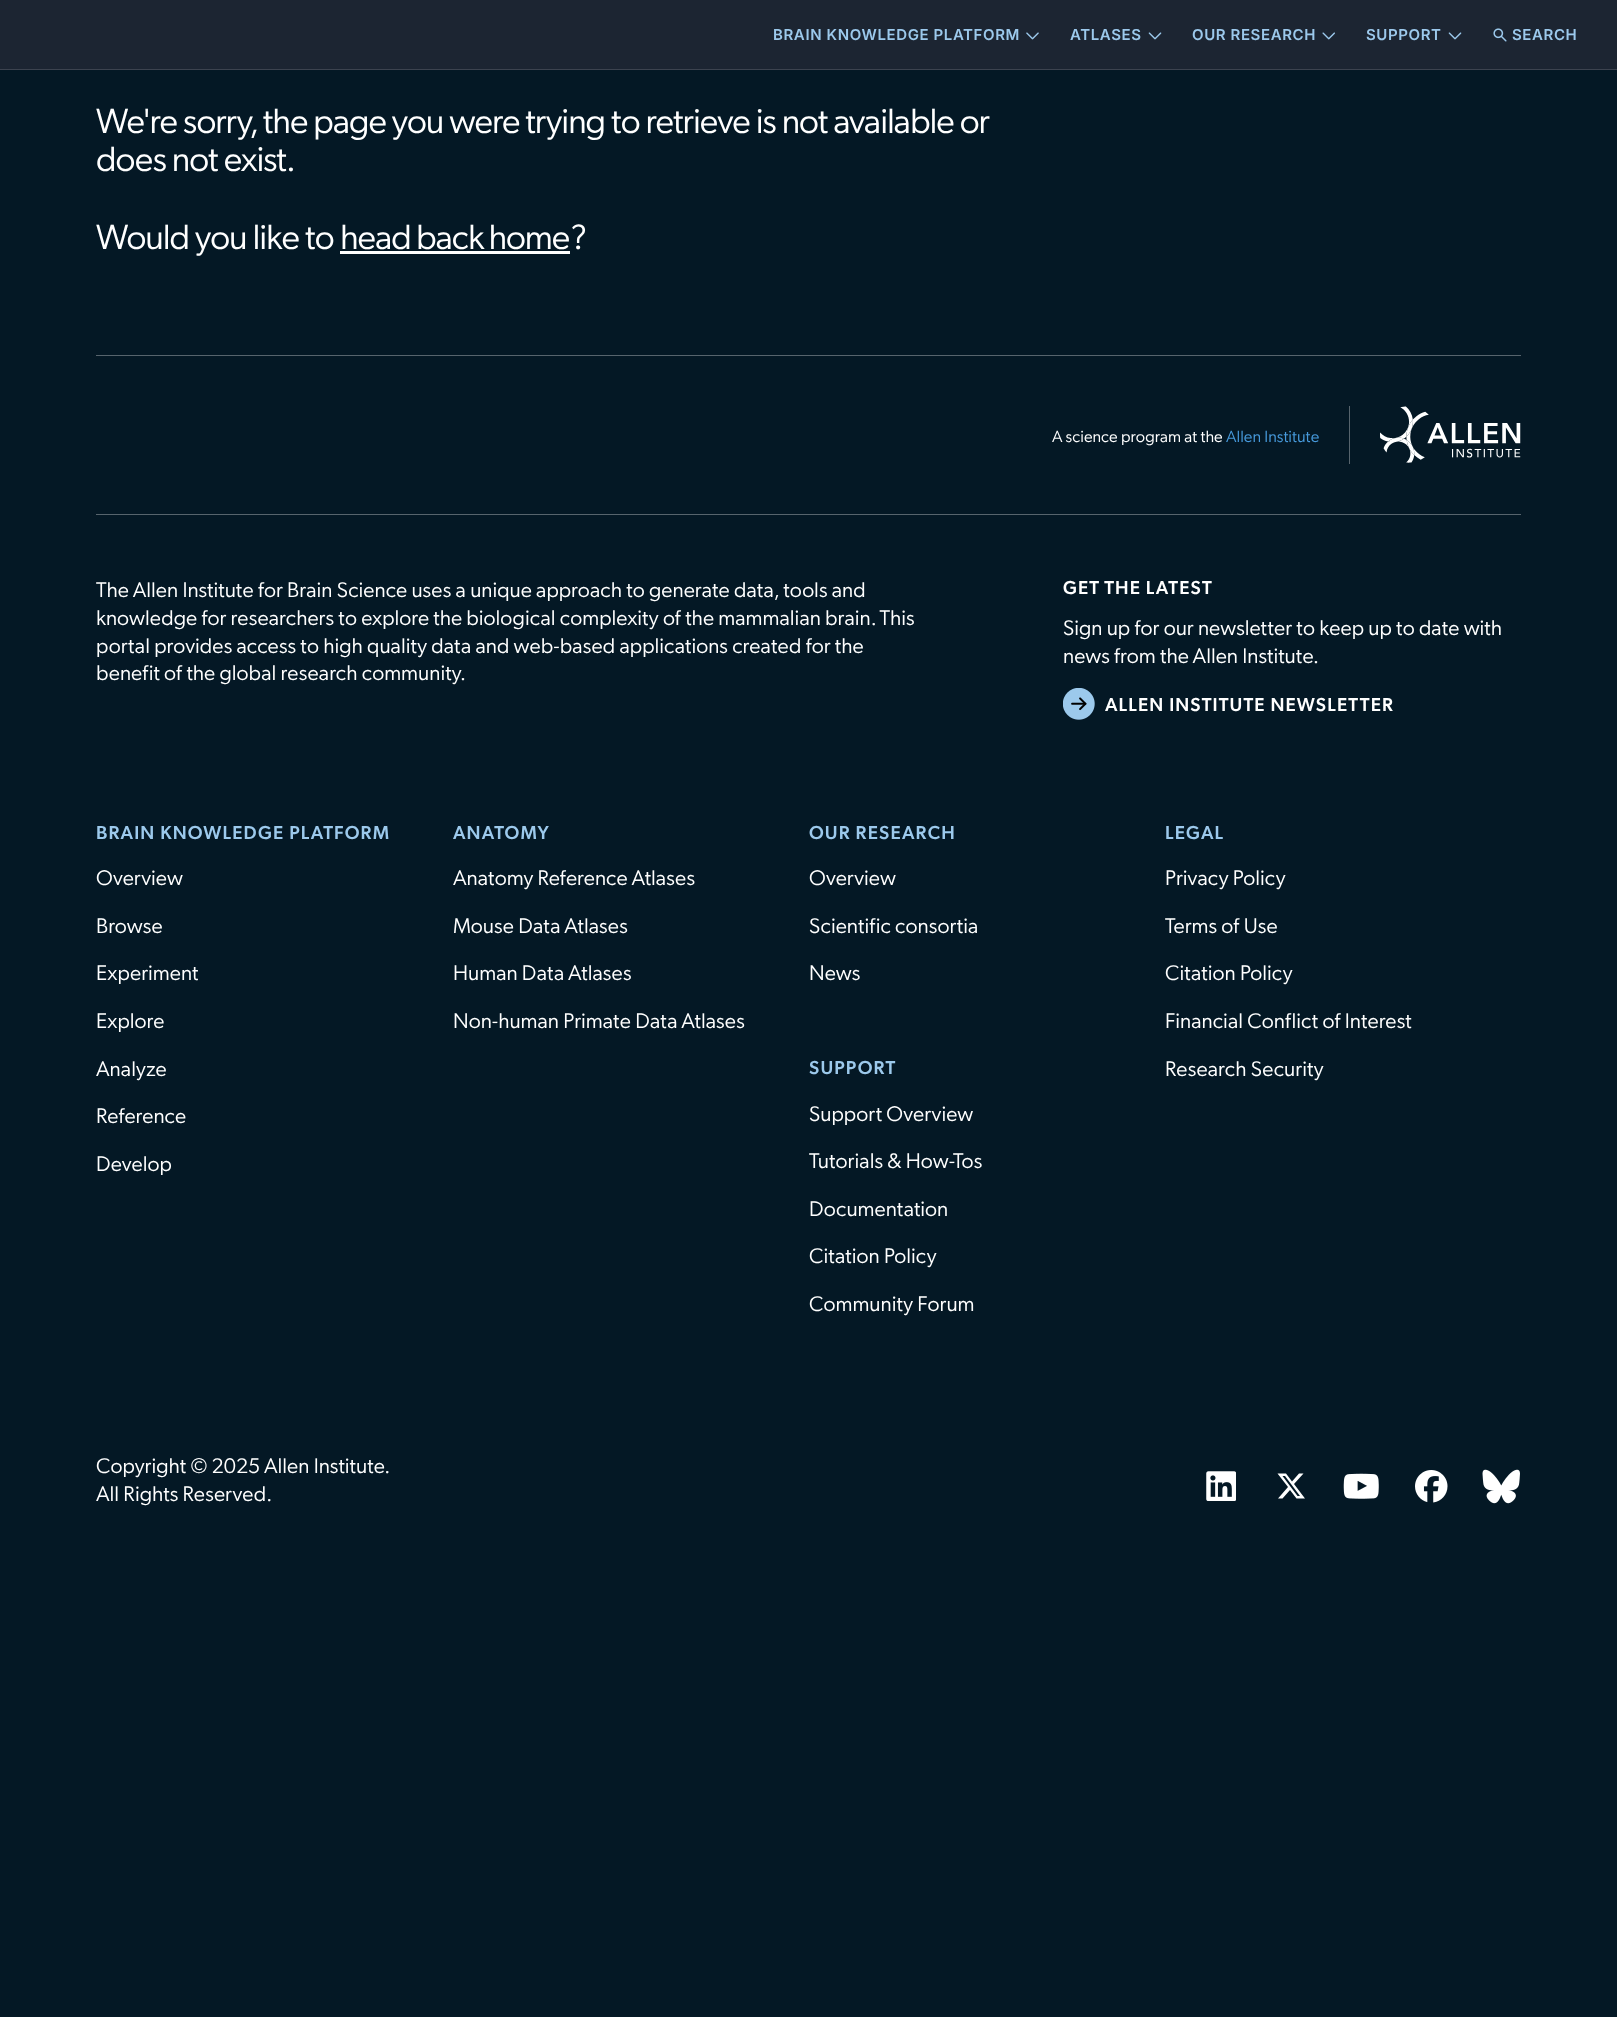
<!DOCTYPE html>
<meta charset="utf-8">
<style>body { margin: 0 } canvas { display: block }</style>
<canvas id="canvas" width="1617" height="2017"></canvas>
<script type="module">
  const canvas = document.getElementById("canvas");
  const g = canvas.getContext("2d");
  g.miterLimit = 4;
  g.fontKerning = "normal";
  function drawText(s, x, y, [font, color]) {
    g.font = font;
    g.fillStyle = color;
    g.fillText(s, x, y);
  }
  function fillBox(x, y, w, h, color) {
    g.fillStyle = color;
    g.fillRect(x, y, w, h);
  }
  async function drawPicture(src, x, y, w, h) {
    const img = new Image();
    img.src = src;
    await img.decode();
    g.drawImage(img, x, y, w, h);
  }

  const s1 = ["600 15px Inter", "#9CC9EC"];
  const s2 = ["35.2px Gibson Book", "#FFFFFF"];
  const s3 = ["16.4px Gibson Book", "#FFFFFF"];
  const s4 = ["16.4px Gibson Book", "#479ADC"];
  const s5 = ["21.25px Gibson Book", "#FFFFFF"];
  const s6 = ["500 18.75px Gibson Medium", "#FFFFFF"];
  const s7 = ["500 18.75px Gibson Medium", "#9CC9EC"];

  fillBox(0, 0, 1617, 2017, "#041825");
  fillBox(0, 0, 1617, 69, "#1C2532");
  fillBox(0, 69, 1617, 1, "#3C434F");
  g.letterSpacing = "0.6px";
  drawText("BRAIN KNOWLEDGE PLATFORM", 773, 40, s1);
  await drawPicture("pic1.png", 1026, 32, 13, 8);
  drawText("ATLASES", 1070, 40, s1);
  await drawPicture("pic2.png", 1148, 32, 14, 8);
  drawText("OUR RESEARCH", 1192, 40, s1);
  await drawPicture("pic3.png", 1322, 32, 13, 8);
  drawText("SUPPORT", 1366, 40, s1);
  await drawPicture("pic2.png", 1448, 32, 14, 8);
  await drawPicture("pic4.png", 1493, 28, 14, 14);
  drawText("SEARCH", 1512, 40, s1);
  g.letterSpacing = "-1.05px";
  drawText("We're sorry, the page you were trying to retrieve is not available or", 96, 133, s2);
  drawText("does not exist.", 96, 171, s2);
  drawText("Would you like to", 96, 249, s2);
  g.wordSpacing = "-1px";
  drawText("head back home", 340, 249, s2);
  fillBox(340, 251, 230, 3, "#FFFFFF");
  g.wordSpacing = "0px";
  drawText("?", 570, 249, s2);
  fillBox(96, 355, 1425, 1, "#57646D");
  fillBox(96, 514, 1425, 1, "#57646D");
  g.letterSpacing = "0px";
  drawText("A science program at the", 1052, 442, s3);
  drawText("Allen Institute", 1226, 442, s4);
  fillBox(1349, 406, 1, 58, "#57646D");
  await drawPicture("pic5.png", 1380, 406, 141, 57);
  drawText("The Allen Institute for Brain Science uses a unique approach to generate data, tools and", 96, 597, s5);
  drawText("knowledge for researchers to explore the biological complexity of the mammalian brain. This", 96, 625, s5);
  drawText("portal provides access to high quality data and web-based applications created for the", 96, 653, s5);
  drawText("benefit of the global research community.", 96, 680, s5);
  g.letterSpacing = "1.1px";
  drawText("GET THE LATEST", 1063, 594, s6);
  g.letterSpacing = "0px";
  drawText("Sign up for our newsletter to keep up to date with", 1063, 635, s5);
  drawText("news from the Allen Institute.", 1063, 663, s5);
  await drawPicture("pic6.png", 1063, 688, 32, 32);
  g.letterSpacing = "1.1px";
  drawText("ALLEN INSTITUTE NEWSLETTER", 1105, 711, s6);
  drawText("BRAIN KNOWLEDGE PLATFORM", 96, 839, s7);
  g.letterSpacing = "0px";
  drawText("Overview", 96, 885, s5);
  drawText("Browse", 96, 933, s5);
  drawText("Experiment", 96, 980, s5);
  drawText("Explore", 96, 1028, s5);
  drawText("Analyze", 96, 1076, s5);
  drawText("Reference", 96, 1123, s5);
  drawText("Develop", 96, 1171, s5);
  g.letterSpacing = "1.1px";
  drawText("ANATOMY", 453, 839, s7);
  g.letterSpacing = "0px";
  drawText("Anatomy Reference Atlases", 453, 885, s5);
  drawText("Mouse Data Atlases", 453, 933, s5);
  drawText("Human Data Atlases", 453, 980, s5);
  drawText("Non-human Primate Data Atlases", 453, 1028, s5);
  g.letterSpacing = "1.1px";
  drawText("OUR RESEARCH", 809, 839, s7);
  g.letterSpacing = "0px";
  drawText("Overview", 809, 885, s5);
  drawText("Scientific consortia", 809, 933, s5);
  drawText("News", 809, 980, s5);
  g.letterSpacing = "1.1px";
  drawText("SUPPORT", 809, 1074, s7);
  g.letterSpacing = "0px";
  drawText("Support Overview", 809, 1121, s5);
  drawText("Tutorials & How-Tos", 809, 1168, s5);
  drawText("Documentation", 809, 1216, s5);
  drawText("Citation Policy", 809, 1263, s5);
  drawText("Community Forum", 809, 1311, s5);
  g.letterSpacing = "1.1px";
  drawText("LEGAL", 1165, 839, s7);
  g.letterSpacing = "0px";
  drawText("Privacy Policy", 1165, 885, s5);
  drawText("Terms of Use", 1165, 933, s5);
  drawText("Citation Policy", 1165, 980, s5);
  drawText("Financial Conflict of Interest", 1165, 1028, s5);
  drawText("Research Security", 1165, 1076, s5);
  drawText("Copyright © 2025", 96, 1473, s5);
  drawText("Allen Institute.", 264, 1473, s5);
  drawText("All Rights Reserved.", 96, 1501, s5);
  await drawPicture("pic7.png", 1206, 1471, 30, 30);
  g.beginPath();
  g.moveTo(1299, 1473.5);
  g.lineTo(1303.5, 1473.5);
  g.lineTo(1294, 1484);
  g.lineTo(1305, 1498.5);
  g.lineTo(1296.5, 1498.5);
  g.lineTo(1290, 1490);
  g.lineTo(1282.5, 1498.5);
  g.lineTo(1278, 1498.5);
  g.lineTo(1288, 1487);
  g.lineTo(1277.5, 1473.5);
  g.lineTo(1286, 1473.5);
  g.lineTo(1292, 1481.5);
  g.closePath();
  g.moveTo(1297.5, 1496);
  g.lineTo(1300, 1496);
  g.lineTo(1285, 1476);
  g.lineTo(1282.5, 1476);
  g.closePath();
  g.fill();
  await drawPicture("pic8.png", 1343, 1473, 36, 26);
  await drawPicture("pic9.png", 1415, 1470, 33, 33);
  await drawPicture("pic10.png", 1482, 1469, 38, 35);
</script>
